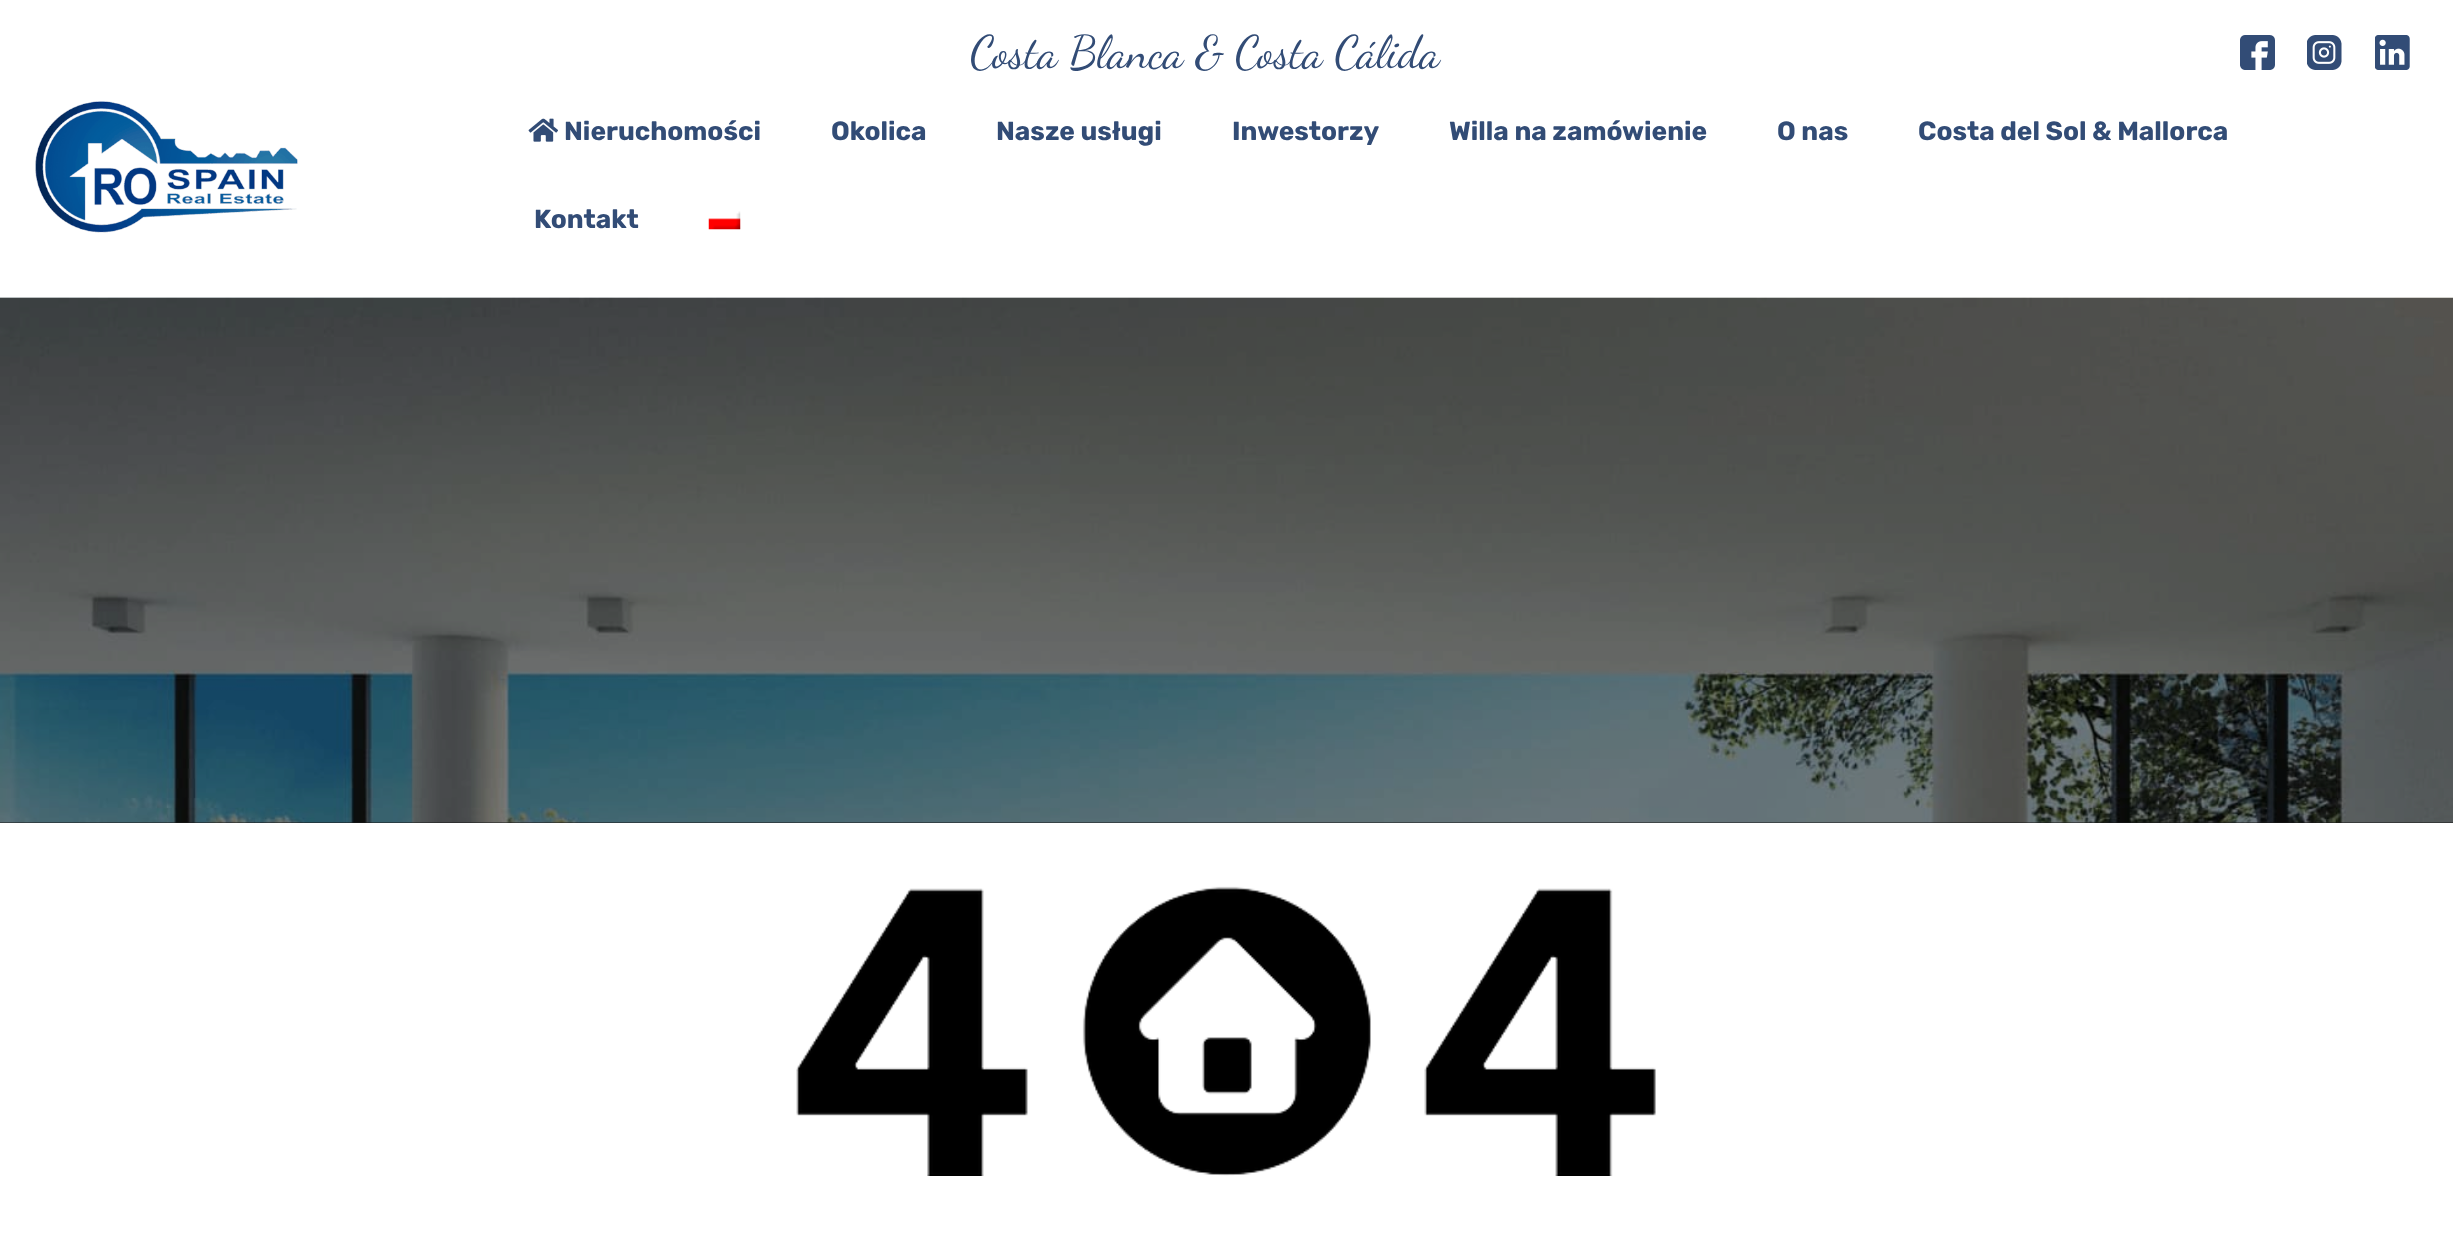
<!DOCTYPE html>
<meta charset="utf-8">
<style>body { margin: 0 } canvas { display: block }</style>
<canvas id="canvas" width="2453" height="1253"></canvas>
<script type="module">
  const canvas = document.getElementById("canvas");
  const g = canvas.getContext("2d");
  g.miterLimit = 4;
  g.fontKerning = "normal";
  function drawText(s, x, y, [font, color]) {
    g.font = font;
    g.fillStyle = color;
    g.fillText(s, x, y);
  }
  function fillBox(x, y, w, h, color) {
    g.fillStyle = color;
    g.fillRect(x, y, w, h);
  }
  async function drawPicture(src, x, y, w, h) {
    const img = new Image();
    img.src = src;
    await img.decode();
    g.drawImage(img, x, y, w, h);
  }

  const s1 = ["45.5px Dancing Script", "#324C76"];
  const s2 = ["bold 26.25px Rubik", "#324C76"];

  fillBox(0, 0, 2453, 1253, "#FFFFFF");
  drawText("Costa Blanca & Costa Cálida", 970, 67, s1);
  await drawPicture("pic1.png", 2240, 35, 35, 35);
  await drawPicture("pic2.png", 2307, 35, 35, 35);
  await drawPicture("pic3.png", 2375, 35, 35, 35);
  await drawPicture("pic4.png", 35, 101, 263, 132);
  await drawPicture("pic5.png", 528, 118, 30, 24);
  drawText("Nieruchomości", 564, 140, s2);
  drawText("Okolica", 831, 140, s2);
  drawText("Nasze usługi", 996, 140, s2);
  drawText("Inwestorzy", 1232, 140, s2);
  drawText("Willa na zamówienie", 1449, 140, s2);
  drawText("O nas", 1777, 140, s2);
  drawText("Costa del Sol & Mallorca", 1918, 140, s2);
  drawText("Kontakt", 534, 228, s2);
  await drawPicture("pic6.png", 708, 211, 33, 19);
  fillBox(0, 822, 2453, 1, "#181818");
  await drawPicture("pic7.png", 0, 297, 2453, 526);
  await drawPicture("pic8.png", 796, 886, 860, 290);
</script>
